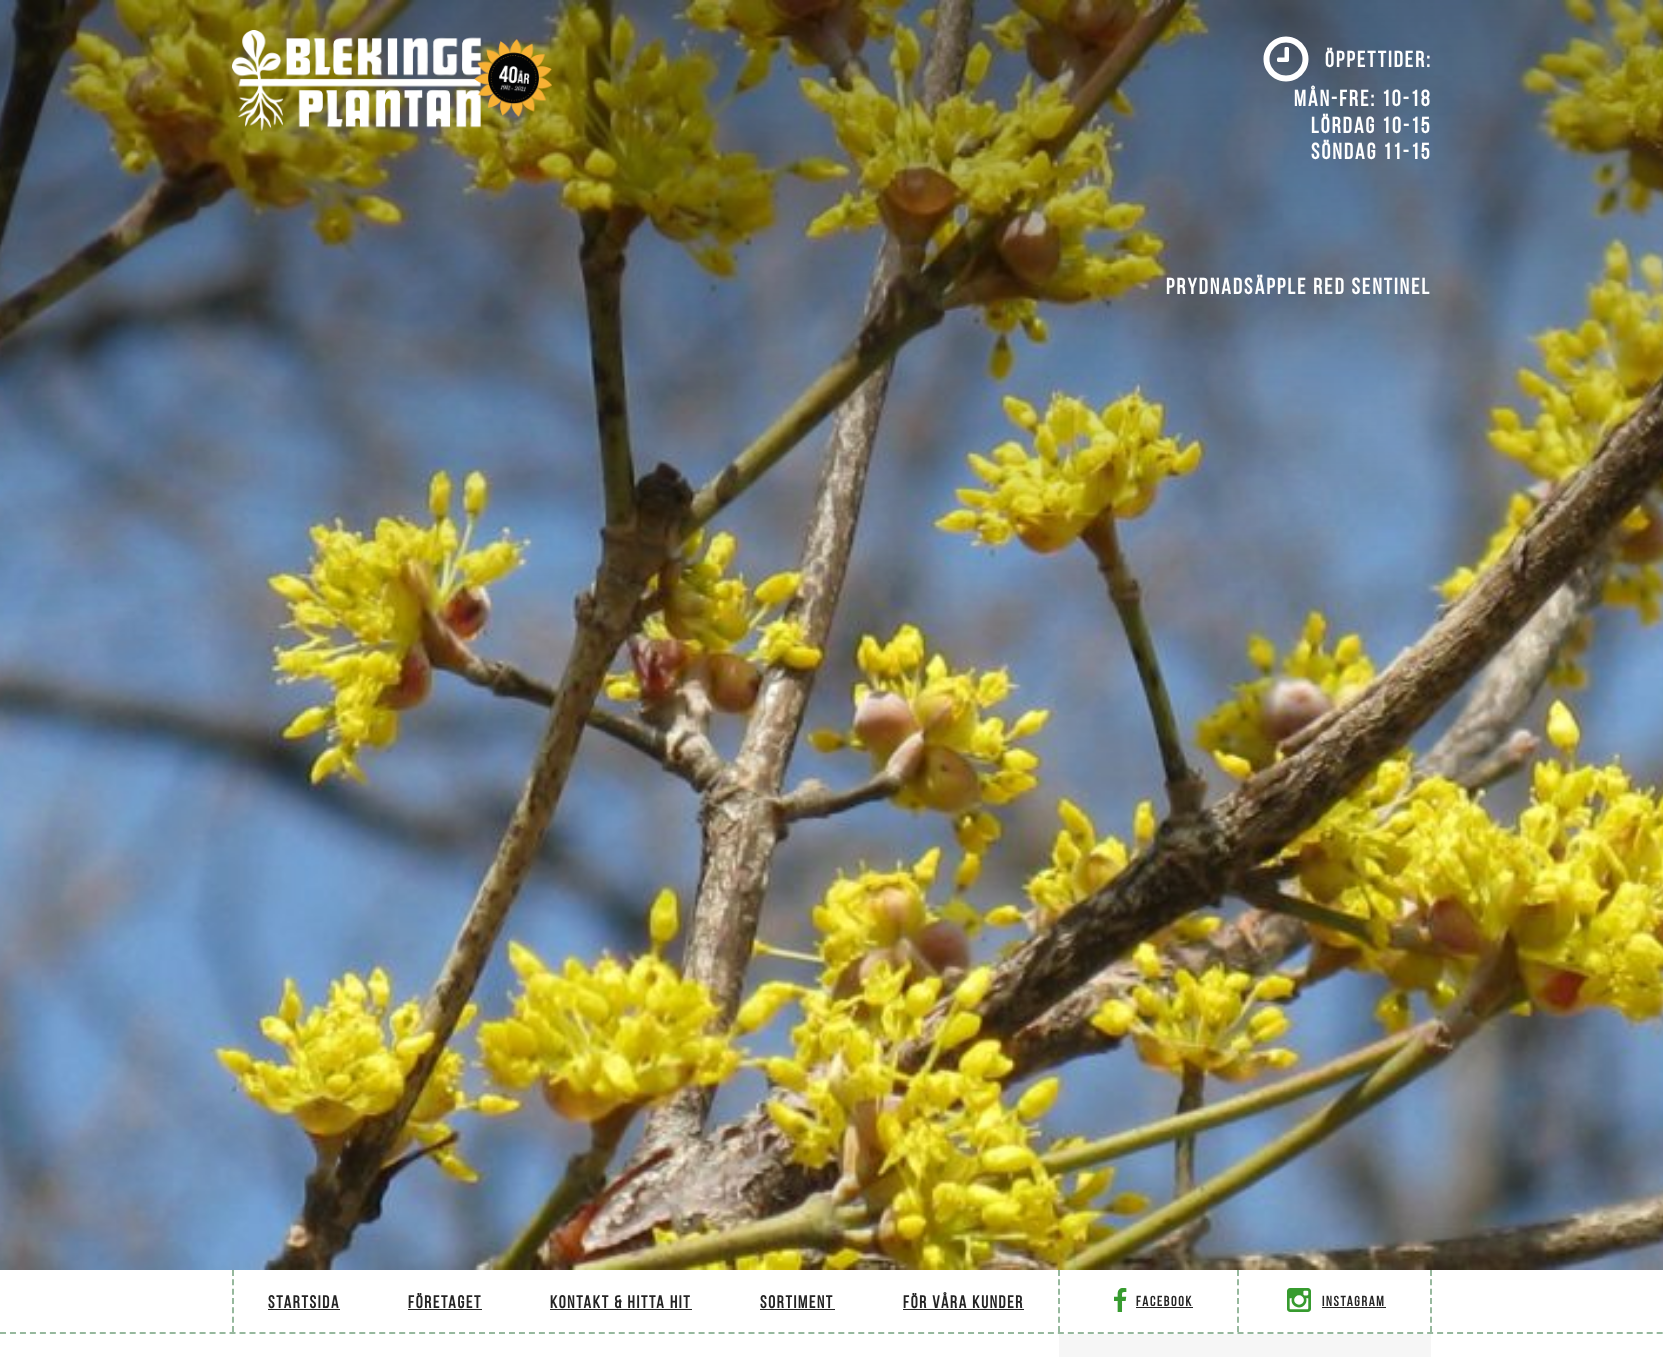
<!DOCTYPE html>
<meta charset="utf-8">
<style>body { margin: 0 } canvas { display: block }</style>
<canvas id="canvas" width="1663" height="1357"></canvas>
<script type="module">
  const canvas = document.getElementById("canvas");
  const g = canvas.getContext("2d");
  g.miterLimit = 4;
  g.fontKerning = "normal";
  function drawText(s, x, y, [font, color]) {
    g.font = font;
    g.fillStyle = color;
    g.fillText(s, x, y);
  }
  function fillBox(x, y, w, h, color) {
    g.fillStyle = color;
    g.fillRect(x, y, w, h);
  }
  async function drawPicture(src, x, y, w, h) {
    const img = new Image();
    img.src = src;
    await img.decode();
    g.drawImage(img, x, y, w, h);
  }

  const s1 = ["bold 22.4px Bebas Neue", "#FFFFFF"];
  const s2 = ["bold 17.5px Bebas Neue", "#242424"];
  const s3 = ["bold 14px Bebas Neue", "#242424"];

  fillBox(0, 0, 1663, 1357, "#FFFFFF");
  await drawPicture("pic1.png", 0, 0, 1663, 1270);
  await drawPicture("pic2.png", 232, 30, 320, 101);
  await drawPicture("pic3.png", 1263, 36, 46, 46);
  g.letterSpacing = "2.25px";
  drawText("Öppettider:", 1325, 67, s1);
  drawText("Mån-fre: 10-18", 1294, 106, s1);
  drawText("Lördag 10-15", 1311, 133, s1);
  drawText("Söndag 11-15", 1311, 159, s1);
  drawText("Prydnadsäpple Red Sentinel", 1166, 294, s1);
  g.beginPath();
  g.moveTo(0, 1333);
  g.lineTo(1663, 1333);
  g.strokeStyle = "#96B89D";
  g.lineWidth = 2;
  g.setLineDash([6, 3.98]);
  g.stroke();
  g.beginPath();
  g.moveTo(1431, 1270);
  g.lineTo(1431, 1332);
  g.setLineDash([6, 3.33]);
  g.stroke();
  g.beginPath();
  g.moveTo(233, 1270);
  g.lineTo(233, 1332);
  g.stroke();
  g.letterSpacing = "1.75px";
  drawText("Startsida", 268, 1308, s2);
  fillBox(268, 1309, 72, 1, "#242424");
  drawText("Företaget", 408, 1308, s2);
  fillBox(408, 1309, 74, 1, "#242424");
  drawText("Kontakt & hitta hit", 550, 1308, s2);
  fillBox(550, 1309, 142, 1, "#242424");
  drawText("Sortiment", 760, 1308, s2);
  fillBox(760, 1309, 75, 1, "#242424");
  drawText("För våra kunder", 903, 1308, s2);
  fillBox(903, 1309, 121, 1, "#242424");
  g.beginPath();
  g.moveTo(1059, 1270);
  g.lineTo(1059, 1332);
  g.stroke();
  await drawPicture("pic4.png", 1114, 1288, 13, 24);
  drawText("Facebook", 1136, 1306, s3);
  fillBox(1136, 1307, 57, 1, "#242424");
  g.beginPath();
  g.moveTo(1238, 1270);
  g.lineTo(1238, 1332);
  g.stroke();
  await drawPicture("pic5.png", 1287, 1288, 24, 24);
  drawText("Instagram", 1322, 1306, s3);
  fillBox(1322, 1307, 64, 1, "#242424");
  fillBox(1059, 1334, 372, 23, "#F6F6F6");
</script>
